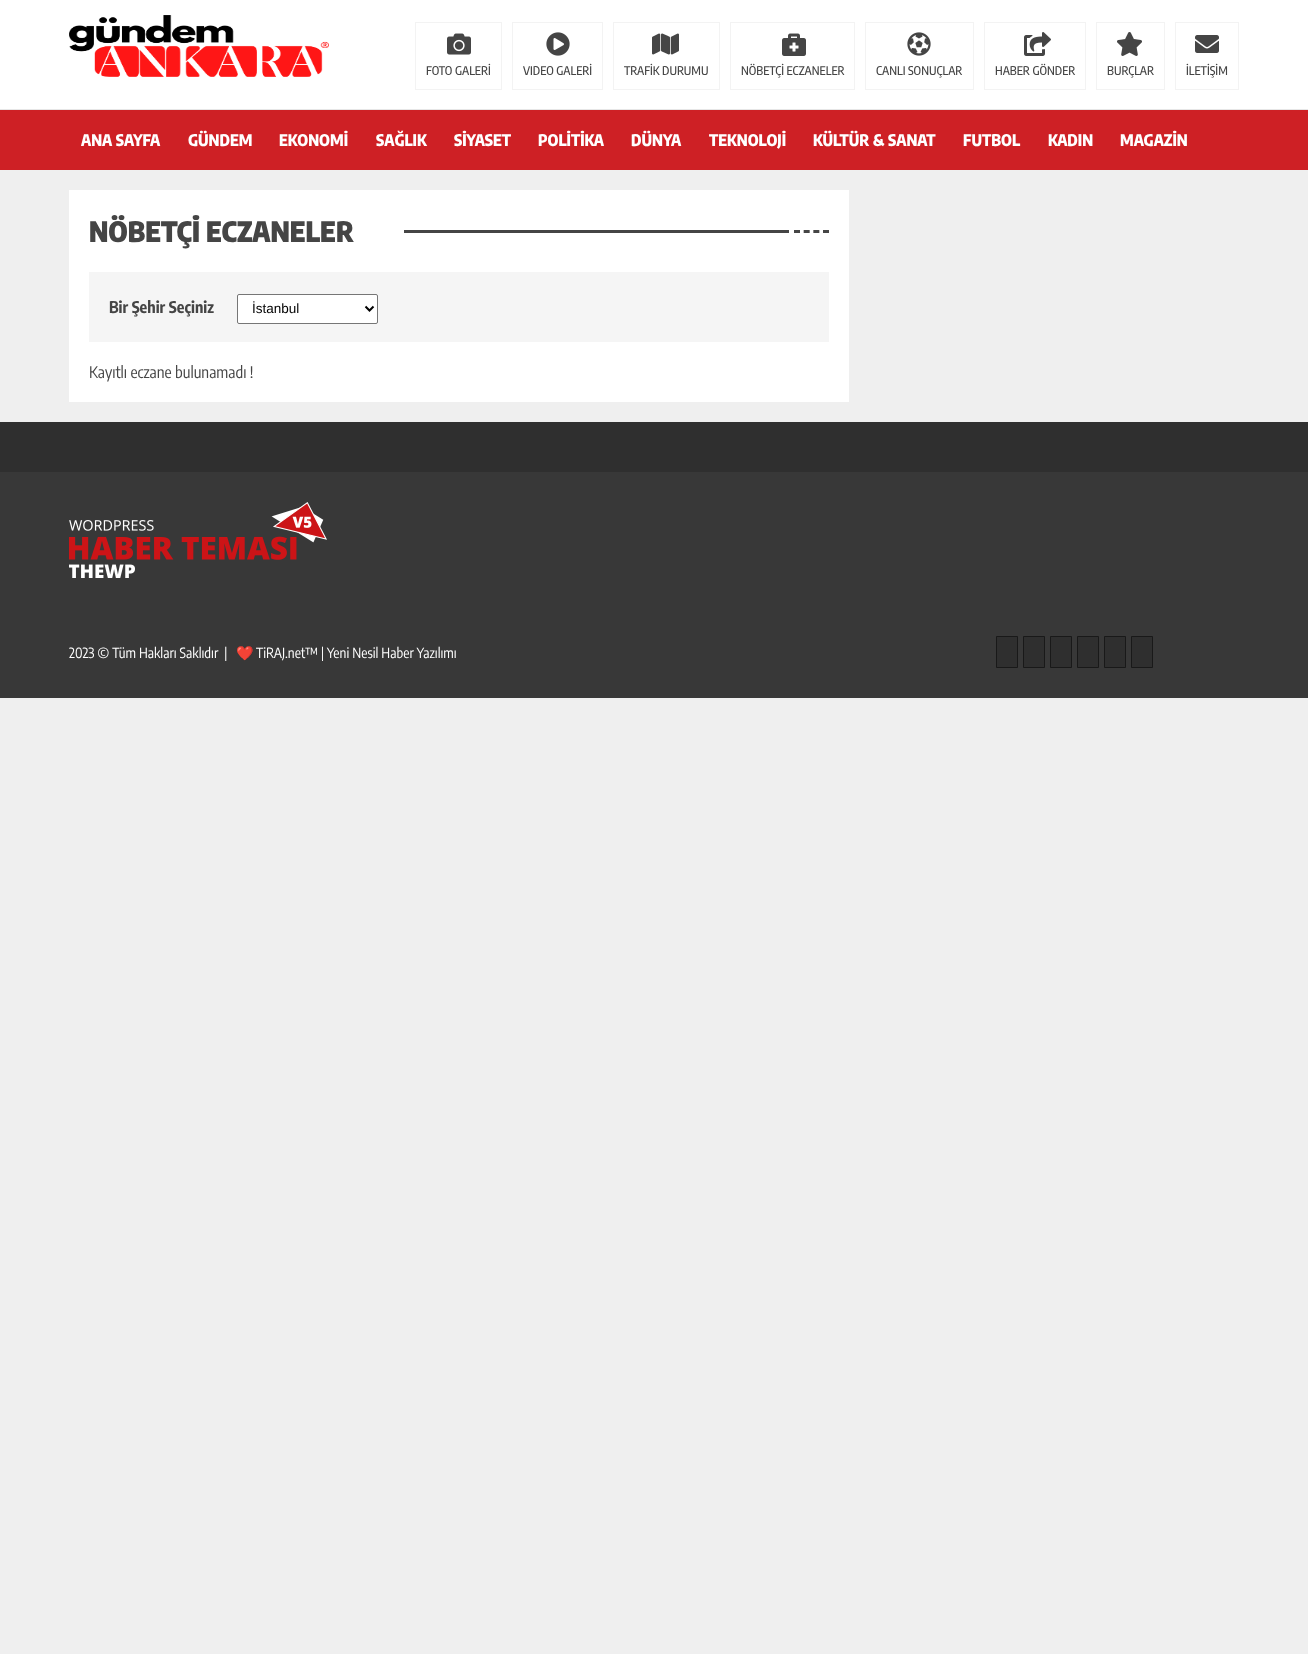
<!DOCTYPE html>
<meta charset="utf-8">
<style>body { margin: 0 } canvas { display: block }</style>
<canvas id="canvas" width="1308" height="1654"></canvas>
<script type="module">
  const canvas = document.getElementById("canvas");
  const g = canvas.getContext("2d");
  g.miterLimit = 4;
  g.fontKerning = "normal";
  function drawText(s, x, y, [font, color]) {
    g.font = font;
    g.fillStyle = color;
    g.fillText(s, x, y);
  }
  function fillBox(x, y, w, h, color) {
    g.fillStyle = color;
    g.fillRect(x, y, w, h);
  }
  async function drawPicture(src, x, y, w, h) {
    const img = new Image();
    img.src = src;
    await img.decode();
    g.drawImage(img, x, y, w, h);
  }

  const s1 = ["500 12px Encode Sans Condensed", "#454545"];
  const s2 = ["800 16px Encode Sans Condensed", "#FFFFFF"];
  const s3 = ["900 28px Encode Sans Condensed", "#454545"];
  const s4 = ["bold 16px Encode Sans Condensed", "#454545"];
  const s5 = ["13.5px Liberation Sans", "#000000"];
  const s6 = ["16px Encode Sans Condensed", "#454545"];
  const s7 = ["14px Encode Sans Condensed", "#FFFFFF"];
  const s8 = ["14px Noto Color Emoji", "#0000EE"];

  fillBox(0, 0, 1308, 1654, "#EFEFEF");
  fillBox(0, 0, 1308, 109, "#FFFFFF");
  fillBox(0, 109, 1308, 1, "#E6E6E6");
  await drawPicture("pic1.png", 69, 15, 260, 62);
  await drawPicture("pic2.png", 447, 33, 24, 22);
  g.strokeStyle = "#F3F3F3";
  g.strokeRect(415.5, 22.5, 86, 67);
  drawText("FOTO GALERİ", 426, 75, s1);
  await drawPicture("pic3.png", 546, 32, 24, 24);
  g.strokeRect(512.5, 22.5, 90, 67);
  drawText("VIDEO GALERİ", 523, 75, s1);
  await drawPicture("pic4.png", 652, 33, 27, 22);
  g.strokeRect(613.5, 22.5, 106, 67);
  drawText("TRAFİK DURUMU", 624, 75, s1);
  await drawPicture("pic5.png", 782, 33, 24, 23);
  g.strokeRect(730.5, 22.5, 124, 67);
  drawText("NÖBETÇİ ECZANELER", 741, 75, s1);
  await drawPicture("pic6.png", 907, 32, 24, 24);
  g.strokeRect(865.5, 22.5, 108, 67);
  drawText("CANLI SONUÇLAR", 876, 75, s1);
  await drawPicture("pic7.png", 1024, 32, 27, 24);
  g.strokeRect(984.5, 22.5, 101, 67);
  drawText("HABER GÖNDER", 995, 75, s1);
  await drawPicture("pic8.png", 1117, 32, 25, 24);
  g.strokeRect(1096.5, 22.5, 68, 67);
  drawText("BURÇLAR", 1107, 75, s1);
  await drawPicture("pic9.png", 1195, 35, 24, 18);
  g.strokeRect(1175.5, 22.5, 63, 67);
  drawText("İLETİŞİM", 1186, 75, s1);
  fillBox(0, 110, 1308, 60, "#CE2025");
  drawText("ANA SAYFA", 81, 146, s2);
  drawText("GÜNDEM", 188, 146, s2);
  drawText("EKONOMİ", 279, 146, s2);
  drawText("SAĞLIK", 376, 146, s2);
  drawText("SİYASET", 454, 146, s2);
  drawText("POLİTİKA", 538, 146, s2);
  drawText("DÜNYA", 631, 146, s2);
  drawText("TEKNOLOJİ", 709, 146, s2);
  drawText("KÜLTÜR & SANAT", 813, 146, s2);
  drawText("FUTBOL", 963, 146, s2);
  drawText("KADIN", 1048, 146, s2);
  drawText("MAGAZİN", 1120, 146, s2);
  fillBox(69, 190, 780, 212, "#FFFFFF");
  drawText("NÖBETÇİ ECZANELER", 89, 242, s3);
  fillBox(404, 230, 385, 3, "#454545");
  g.beginPath();
  g.moveTo(794, 231.5);
  g.lineTo(829, 231.5);
  g.strokeStyle = "#454545";
  g.lineWidth = 3;
  g.setLineDash([6, 3.67]);
  g.stroke();
  fillBox(89, 272, 740, 70, "#F5F5F5");
  drawText("Bir Şehir Seçiniz", 109, 313, s4);
  g.fillStyle = "#FFFFFF";
  g.beginPath();
  g.roundRect(237.5, 294.5, 140, 29, 1.5);
  g.fill();
  g.strokeStyle = "#767676";
  g.lineWidth = 1;
  g.setLineDash([]);
  g.stroke();
  g.beginPath();
  g.moveTo(365.5, 306.5);
  g.lineTo(369.5, 310.5);
  g.lineTo(373.5, 306.5);
  g.strokeStyle = "#000000";
  g.lineWidth = 2;
  g.stroke();
  drawText("İstanbul", 252, 313, s5);
  drawText("Kayıtlı eczane bulunamadı !", 89, 378, s6);
  fillBox(0, 472, 1308, 226, "#383838");
  fillBox(0, 422, 1308, 50, "#2F2F2F");
  await drawPicture("pic10.png", 69, 502, 258, 76);
  drawText("2023 © Tüm Hakları Saklıdır  |", 69, 658, s7);
  drawText("❤️", 236, 658, s8);
  drawText("TiRAJ.net™ | Yeni Nesil Haber Yazılımı", 256, 658, s7);
  g.fillStyle = "#2F2F2F";
  g.beginPath();
  g.rect(996.5, 636.5, 21, 31);
  g.fill();
  g.strokeStyle = "#191919";
  g.lineWidth = 1;
  g.stroke();
  g.beginPath();
  g.rect(1023.5, 636.5, 21, 31);
  g.fill();
  g.stroke();
  g.beginPath();
  g.rect(1050.5, 636.5, 21, 31);
  g.fill();
  g.stroke();
  g.beginPath();
  g.rect(1077.5, 636.5, 21, 31);
  g.fill();
  g.stroke();
  g.beginPath();
  g.rect(1104.5, 636.5, 21, 31);
  g.fill();
  g.stroke();
  g.beginPath();
  g.rect(1131.5, 636.5, 21, 31);
  g.fill();
  g.stroke();
</script>
